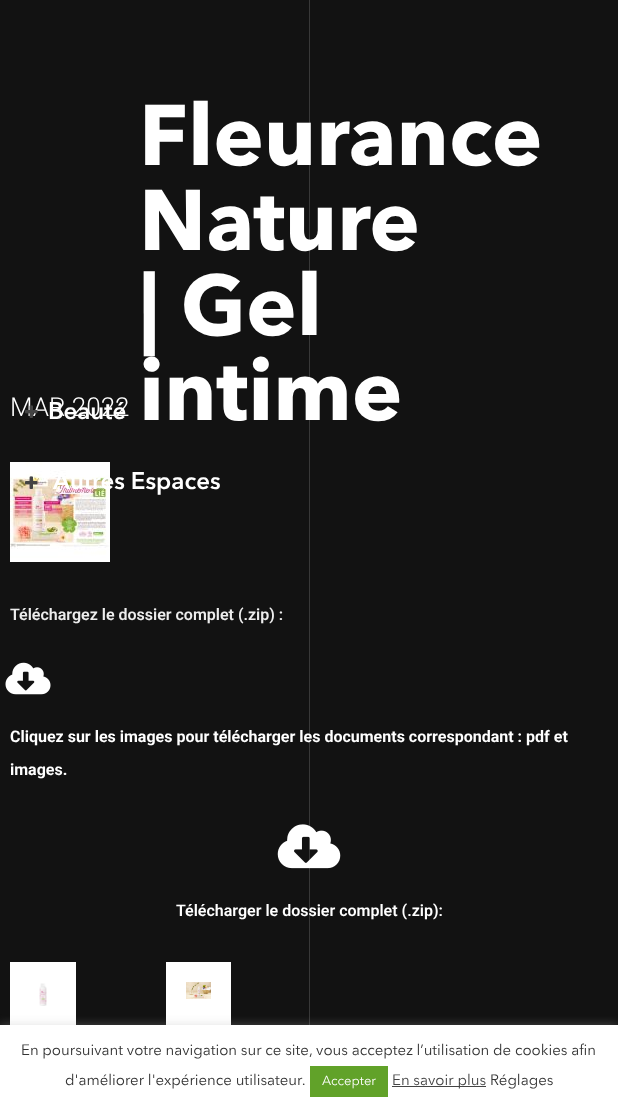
<!DOCTYPE html>
<meta charset="utf-8">
<style>body { margin: 0 } canvas { display: block }</style>
<canvas id="canvas" width="618" height="1109"></canvas>
<script type="module">
  const canvas = document.getElementById("canvas");
  const g = canvas.getContext("2d");
  g.miterLimit = 4;
  g.fontKerning = "normal";
  function drawText(s, x, y, [font, color]) {
    g.font = font;
    g.fillStyle = color;
    g.fillText(s, x, y);
  }
  function fillBox(x, y, w, h, color) {
    g.fillStyle = color;
    g.fillRect(x, y, w, h);
  }
  async function drawPicture(src, x, y, w, h) {
    const img = new Image();
    img.src = src;
    await img.decode();
    g.drawImage(img, x, y, w, h);
  }

  const s1 = ["300 26px Roboto", "#FFFFFF"];
  const s2 = ["bold 85px Avenir Next", "#FFFFFF"];
  const s3 = ["600 24px Avenir Next", "#FFFFFF"];
  const s4 = ["600 16px Roboto", "#EDEDED"];
  const s5 = ["bold 16px Roboto", "#FFFFFF"];
  const s6 = ["600 16px Roboto", "#FFFFFF"];
  const s7 = ["15px Avenir Next", "#333333"];
  const s8 = ["13px Avenir Next", "#FFFFFF"];
  const s9 = ["15px Avenir Next", "#444444"];

  fillBox(0, 0, 618, 1109, "#121212");
  fillBox(309, 0, 1, 1025, "#383838");
  drawText("MAR 2022", 10, 416, s1);
  drawText("Fleurance", 139, 165, s2);
  drawText("Nature", 139, 250, s2);
  drawText("| Gel", 139, 335, s2);
  drawText("intime", 139, 420, s2);
  await drawPicture("pic1.png", 25, 405, 13, 13);
  drawText("Beauté", 48, 419, s3);
  await drawPicture("pic3.png", 10, 462, 100, 100);
  await drawPicture("pic2.png", 25, 476, 13, 13);
  drawText("Autres Espaces", 53, 489, s3);
  drawText("Téléchargez le dossier complet (.zip) :", 10, 620, s4);
  await drawPicture("pic4.png", 5, 662, 46, 33);
  drawText("Cliquez sur les images pour télécharger les documents correspondant : pdf et", 10, 742, s5);
  drawText("images.", 10, 775, s5);
  await drawPicture("pic5.png", 277, 824, 64, 45);
  drawText("Télécharger le dossier complet (.zip):", 176, 916, s6);
  fillBox(10, 962, 66, 63, "#FFFFFF");
  await drawPicture("pic6.png", 39, 983, 8, 23);
  fillBox(166, 962, 65, 63, "#FFFFFF");
  await drawPicture("pic7.png", 186, 982, 25, 17);
  g.fillStyle = "rgba(172, 171, 171, 0.3)";
  g.filter = "blur(5px)";
  g.beginPath();
  g.rect(0, 1024, 618, 84);
  g.fill();
  g.filter = "none";
  fillBox(0, 1025, 618, 84, "#FFFFFF");
  drawText("En poursuivant votre navigation sur ce site, vous acceptez l’utilisation de cookies afin", 21, 1055, s7);
  drawText("d'améliorer l'expérience utilisateur.", 65, 1085, s7);
  fillBox(310, 1066, 78, 31, "#61A229");
  drawText("Accepter", 322, 1085, s8);
  fillBox(392, 1086, 94, 1, "#444444");
  drawText("En savoir plus", 392, 1085, s9);
  drawText("Réglages", 490, 1085, s7);
</script>
